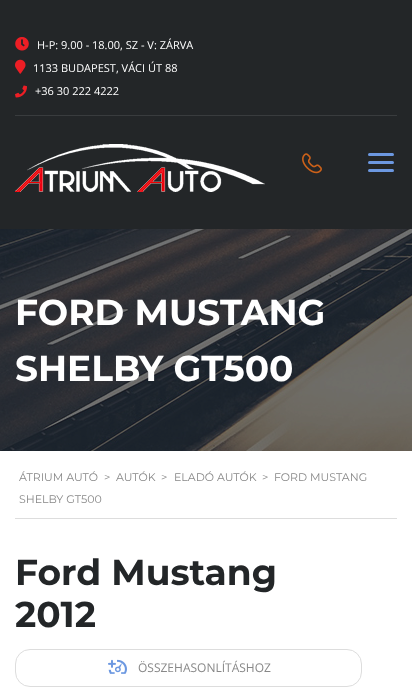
<!DOCTYPE html>
<meta charset="utf-8">
<style>body { margin: 0 } canvas { display: block }</style>
<canvas id="canvas" width="412" height="696"></canvas>
<script type="module">
  const canvas = document.getElementById("canvas");
  const g = canvas.getContext("2d");
  g.miterLimit = 4;
  g.fontKerning = "normal";
  function drawText(s, x, y, [font, color]) {
    g.font = font;
    g.fillStyle = color;
    g.fillText(s, x, y);
  }
  function fillBox(x, y, w, h, color) {
    g.fillStyle = color;
    g.fillRect(x, y, w, h);
  }
  function fillRounded(x, y, w, h, r, color) {
    g.fillStyle = color;
    g.beginPath();
    g.roundRect(x, y, w, h, r);
    g.fill();
  }
  async function drawPicture(src, x, y, w, h) {
    const img = new Image();
    img.src = src;
    await img.decode();
    g.drawImage(img, x, y, w, h);
  }

  const s1 = ["11px Open Sans", "#FFFFFF"];
  const s2 = ["bold 36px Montserrat", "#FFFFFF"];
  const s3 = ["11px Montserrat", "#888888"];
  const s4 = ["bold 36px Montserrat", "#232628"];
  const s5 = ["12px Open Sans", "#888888"];

  fillBox(0, 0, 412, 696, "#FFFFFF");
  fillBox(0, 0, 412, 229, "#232628");
  fillBox(15, 115, 382, 1, "#393C3E");
  await drawPicture("pic1.png", 15, 37, 14, 14);
  drawText("H-P: 9.00 - 18.00, SZ - V: ZÁRVA", 37, 49, s1);
  await drawPicture("pic2.png", 15, 59, 11, 15);
  drawText("1133 BUDAPEST, VÁCI ÚT 88", 33, 72, s1);
  await drawPicture("pic3.png", 15, 85, 12, 13);
  drawText("+36 30 222 4222", 35, 95, s1);
  await drawPicture("pic4.png", 15, 144, 250, 48);
  await drawPicture("pic5.png", 302, 153, 20, 21);
  fillRounded(368, 153, 26, 3, 1.5, "#6C98E1");
  fillRounded(368, 161, 26, 3, 1.5, "#6C98E1");
  fillRounded(368, 169, 26, 3, 1.5, "#6C98E1");
  await drawPicture("pic6.png", 0, 229, 412, 222);
  drawText("FORD MUSTANG", 15, 325, s2);
  drawText("SHELBY GT500", 15, 381, s2);
  fillBox(15, 518, 382, 1, "#DDDDDD");
  drawText("ÁTRIUM AUTÓ", 19, 481, s3);
  drawText(">", 104, 481, s3);
  drawText("AUTÓK", 116, 481, s3);
  drawText(">", 161, 481, s3);
  drawText("ELADÓ AUTÓK", 174, 481, s3);
  drawText(">", 262, 481, s3);
  drawText("FORD MUSTANG", 274, 481, s3);
  drawText("SHELBY GT500", 19, 503, s3);
  drawText("Ford Mustang", 15, 585, s4);
  drawText("2012", 15, 627, s4);
  g.beginPath();
  g.roundRect(15.5, 649.5, 346, 37, 14.5);
  g.strokeStyle = "#DDDDDD";
  g.stroke();
  await drawPicture("pic7.png", 108, 659, 19, 15);
  drawText("ÖSSZEHASONLÍTÁSHOZ", 138, 672, s5);
</script>
